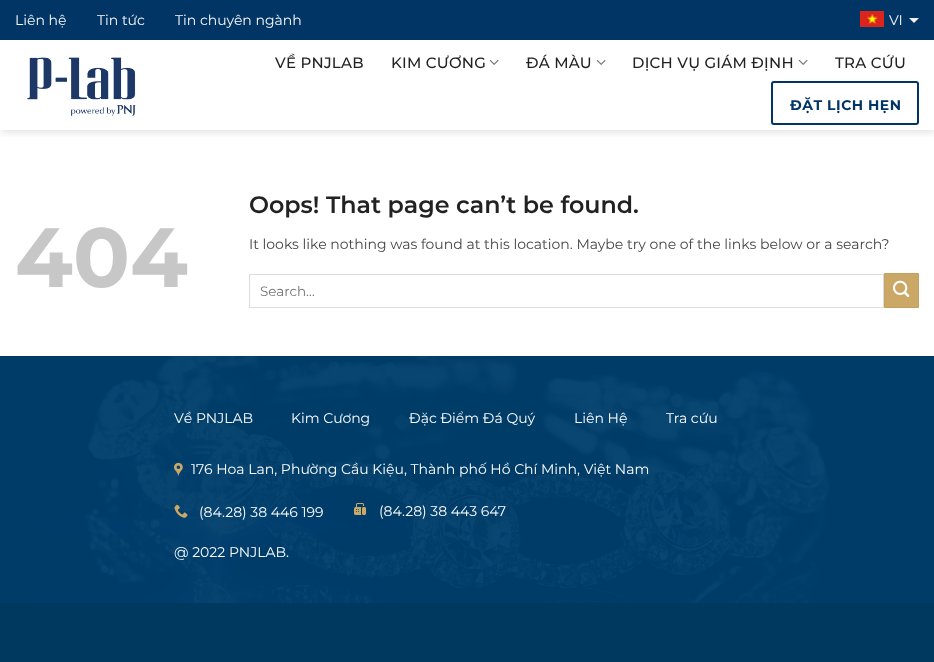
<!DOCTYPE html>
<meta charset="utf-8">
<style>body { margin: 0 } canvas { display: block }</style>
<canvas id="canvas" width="934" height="662"></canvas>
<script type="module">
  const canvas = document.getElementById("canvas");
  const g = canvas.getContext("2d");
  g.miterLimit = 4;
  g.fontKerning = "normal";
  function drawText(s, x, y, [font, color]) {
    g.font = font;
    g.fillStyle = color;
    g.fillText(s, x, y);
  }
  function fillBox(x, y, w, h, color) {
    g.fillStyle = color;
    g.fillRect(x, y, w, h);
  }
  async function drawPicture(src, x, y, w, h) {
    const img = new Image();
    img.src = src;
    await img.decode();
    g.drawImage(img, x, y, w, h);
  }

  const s1 = ["14px Montserrat", "#F9F9F9"];
  const s2 = ["500 15px Montserrat", "#222222"];
  const s3 = ["bold 14px Montserrat", "#003565"];
  const s4 = ["bold 84px Montserrat", "#C7C7C7"];
  const s5 = ["600 23.75px Montserrat", "#222222"];
  const s6 = ["14px Montserrat", "#444444"];
  const s7 = ["13.5px Montserrat", "#757575"];
  const s8 = ["14px Montserrat", "#FFFFFF"];

  fillBox(0, 0, 934, 662, "#00395F");
  fillBox(0, 40, 934, 316, "#FFFFFF");
  g.save();
  g.beginPath();
  g.rect(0, 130, 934, 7);
  g.clip();
  g.fillStyle = "rgba(0, 0, 0, 0.15)";
  g.filter = "blur(5px)";
  g.beginPath();
  g.rect(1, 1, 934, 130);
  g.fill();
  g.filter = "none";
  g.restore();
  fillBox(0, 0, 934, 40, "#003565");
  drawText("Liên hệ", 15, 25, s1);
  drawText("Tin tức", 97, 25, s1);
  drawText("Tin chuyên ngành", 175, 25, s1);
  await drawPicture("pic1.png", 860, 11, 24, 16);
  drawText("VI", 889, 25, s1);
  g.fillStyle = "#F1F1F1";
  g.beginPath();
  g.moveTo(909, 18);
  g.lineTo(914, 23);
  g.lineTo(919, 18);
  g.closePath();
  g.fill();
  await drawPicture("pic2.png", 27, 57, 109, 60);
  g.letterSpacing = "0.25px";
  drawText("VỀ PNJLAB", 275, 68, s2);
  drawText("KIM CƯƠNG", 391, 68, s2);
  await drawPicture("pic3.png", 489, 59, 10, 6);
  drawText("ĐÁ MÀU", 526, 68, s2);
  await drawPicture("pic3.png", 596, 59, 10, 6);
  drawText("DỊCH VỤ GIÁM ĐỊNH", 632, 68, s2);
  await drawPicture("pic3.png", 798, 59, 10, 6);
  drawText("TRA CỨU", 835, 68, s2);
  g.beginPath();
  g.roundRect(772, 82, 146, 42, 2);
  g.strokeStyle = "#003565";
  g.lineWidth = 2;
  g.stroke();
  g.letterSpacing = "0.5px";
  drawText("ĐẶT LỊCH HẸN", 790, 110, s3);
  g.letterSpacing = "0px";
  drawText("404", 15, 287, s4);
  drawText("Oops! That page can’t be found.", 249, 213, s5);
  drawText("It looks like nothing was found at this location. Maybe try one of the links below or a search?", 249, 249, s6);
  g.strokeStyle = "#DDDDDD";
  g.lineWidth = 1;
  g.strokeRect(249.5, 274.5, 634, 33);
  drawText("Search…", 260, 296, s7);
  g.fillStyle = "#CCA866";
  g.beginPath();
  g.rect(884.5, 273.5, 34, 34);
  g.fill();
  g.strokeStyle = "#C2A061";
  g.stroke();
  await drawPicture("pic4.png", 893, 280, 17, 17);
  fillBox(0, 357, 934, 246, "#003F6D");
  fillBox(0, 356, 934, 1, "#003C68");
  await drawPicture("pic5.png", 0, 356, 934, 247);
  drawText("Về PNJLAB", 174, 423, s8);
  drawText("Kim Cương", 291, 423, s8);
  drawText("Đặc Điểm Đá Quý", 409, 423, s8);
  drawText("Liên Hệ", 574, 423, s8);
  drawText("Tra cứu", 666, 423, s8);
  await drawPicture("pic6.png", 174, 462, 9, 15);
  drawText("176 Hoa Lan, Phường Cầu Kiệu, Thành phố Hồ Chí Minh, Việt Nam", 191, 474, s8);
  await drawPicture("pic7.png", 174, 504, 14, 14);
  drawText("(84.28) 38 446 199", 199, 517, s8);
  await drawPicture("pic8.png", 354, 503, 12, 12);
  drawText("(84.28) 38 443 647", 379, 516, s8);
  drawText("@ 2022 PNJLAB.", 174, 557, s8);
</script>
